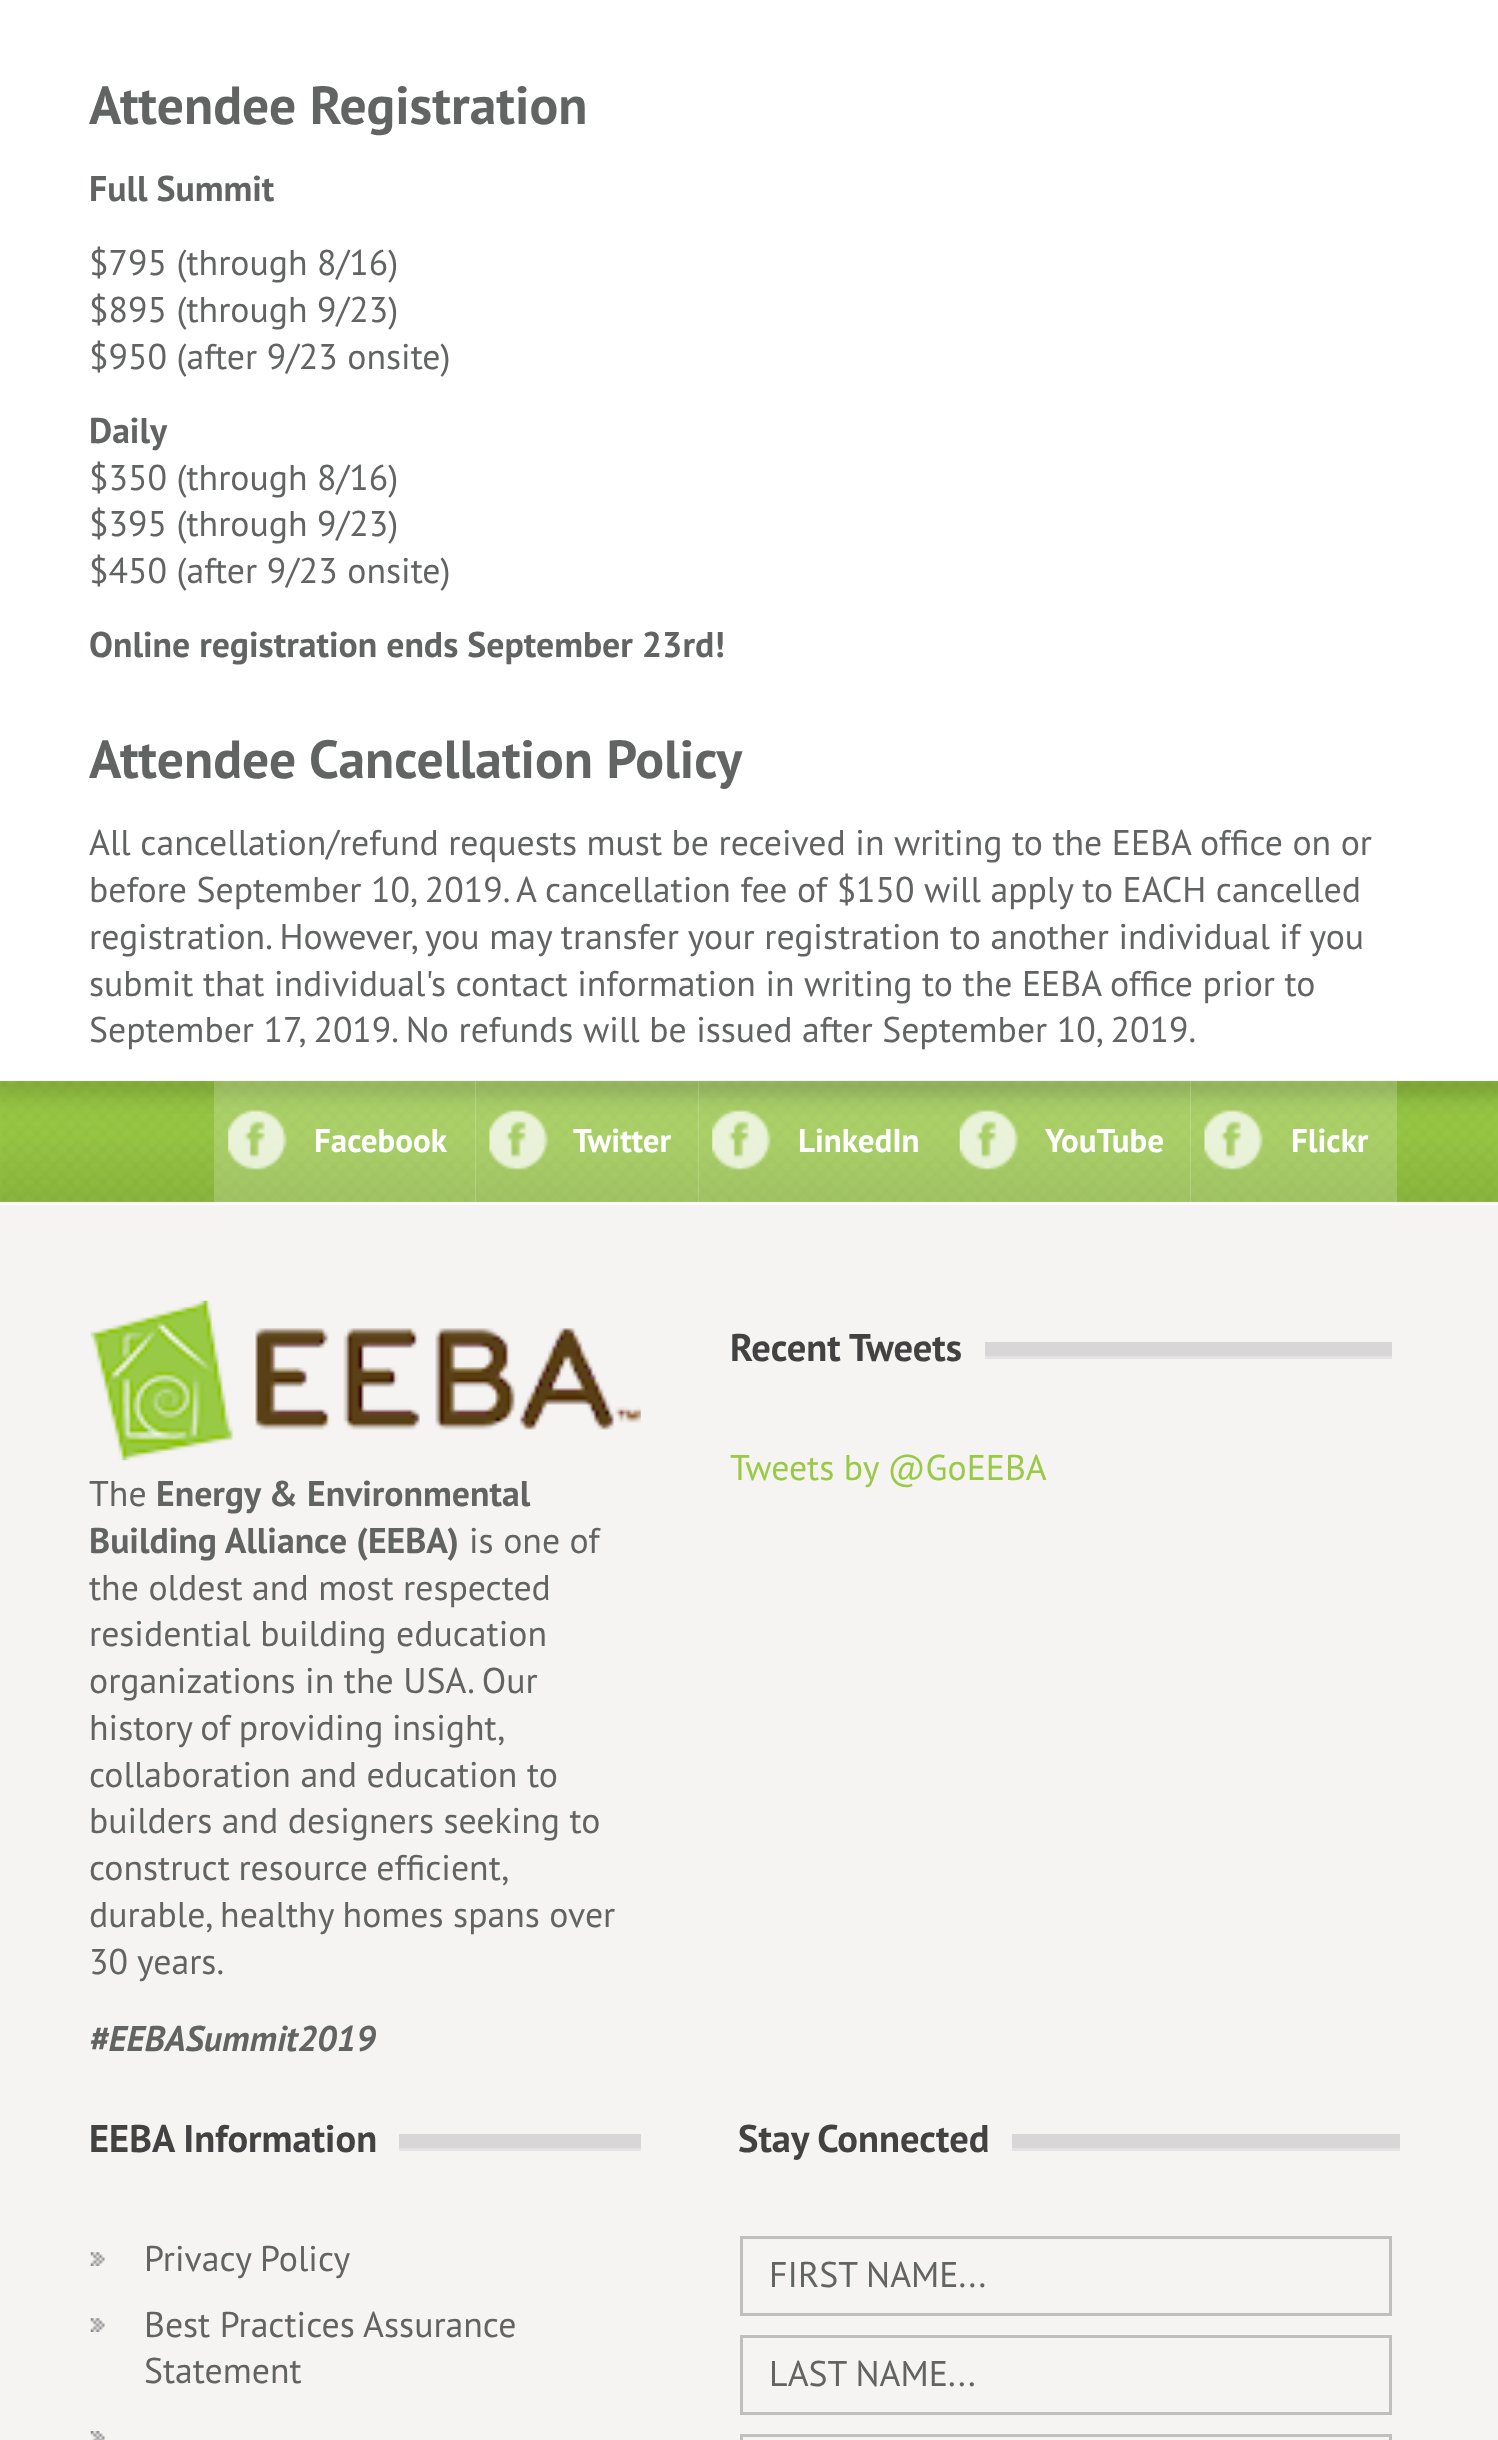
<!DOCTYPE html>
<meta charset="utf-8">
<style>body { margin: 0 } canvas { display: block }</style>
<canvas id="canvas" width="1498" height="2440"></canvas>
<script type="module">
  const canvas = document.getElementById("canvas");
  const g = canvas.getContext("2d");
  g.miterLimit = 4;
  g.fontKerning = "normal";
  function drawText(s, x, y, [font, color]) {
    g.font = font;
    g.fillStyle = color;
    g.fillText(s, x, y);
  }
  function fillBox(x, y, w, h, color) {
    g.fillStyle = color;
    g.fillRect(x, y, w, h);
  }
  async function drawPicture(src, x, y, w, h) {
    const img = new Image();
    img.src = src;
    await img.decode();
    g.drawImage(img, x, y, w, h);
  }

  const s1 = ["bold 53.6px PT Sans", "#626363"];
  const s2 = ["bold 35.75px PT Sans", "#626363"];
  const s3 = ["35.75px PT Sans", "#626363"];
  const s4 = ["bold 33px PT Sans", "#FFFFFF"];
  const s5 = ["bold 38.5px PT Sans", "#434242"];
  const s6 = ["35.75px PT Sans", "#99C945"];
  const s7 = ["italic bold 35.75px PT Sans", "#626363"];

  fillBox(0, 0, 1498, 2440, "#FFFFFF");
  drawText("Attendee Registration", 89, 124, s1);
  drawText("Full Summit", 89, 201, s2);
  drawText("$795 (through 8/16)", 89, 275, s3);
  drawText("$895 (through 9/23)", 89, 322, s3);
  drawText("$950 (after 9/23 onsite)", 89, 369, s3);
  drawText("Daily", 89, 443, s2);
  drawText("$350 (through 8/16)", 89, 490, s3);
  drawText("$395 (through 9/23)", 89, 536, s3);
  drawText("$450 (after 9/23 onsite)", 89, 583, s3);
  drawText("Online registration ends September 23rd!", 89, 657, s2);
  drawText("Attendee Cancellation Policy", 89, 778, s1);
  drawText("All cancellation/refund requests must be received in writing to the EEBA office on or", 89, 855, s3);
  drawText("before September 10, 2019. A cancellation fee of $150 will apply to EACH cancelled", 89, 902, s3);
  drawText("registration. However, you may transfer your registration to another individual if you", 89, 949, s3);
  drawText("submit that individual's contact information in writing to the EEBA office prior to", 89, 996, s3);
  drawText("September 17, 2019. No refunds will be issued after September 10, 2019.", 89, 1042, s3);
  fillBox(0, 1081, 1498, 121, "#99C945");
  await drawPicture("pic1.png", 0, 1080, 1498, 122);
  await drawPicture("pic2.png", 2, 1081, 1495, 120);
  drawText("Facebook", 314, 1152, s4);
  fillBox(214, 1081, 262, 121, "rgba(255, 255, 255, 0.2)");
  await drawPicture("pic3.png", 228, 1109, 59, 61);
  drawText("Twitter", 573, 1152, s4);
  fillBox(475, 1081, 224, 121, "rgba(255, 255, 255, 0.2)");
  await drawPicture("pic4.png", 489, 1109, 60, 61);
  drawText("LinkedIn", 798, 1152, s4);
  fillBox(698, 1081, 248, 121, "rgba(255, 255, 255, 0.2)");
  await drawPicture("pic5.png", 712, 1109, 59, 61);
  drawText("YouTube", 1045, 1152, s4);
  fillBox(946, 1081, 245, 121, "rgba(255, 255, 255, 0.2)");
  await drawPicture("pic6.png", 959, 1109, 60, 61);
  drawText("Flickr", 1291, 1152, s4);
  fillBox(1190, 1081, 207, 121, "rgba(255, 255, 255, 0.2)");
  await drawPicture("pic7.png", 1204, 1109, 60, 61);
  fillBox(0, 1205, 1498, 1235, "#F6F3F3");
  drawText("Recent Tweets", 730, 1361, s5);
  fillBox(985, 1342, 407, 14, "#D9D6D7");
  fillBox(985, 1356, 407, 3, "#E4E2E2");
  drawText("Tweets by @GoEEBA", 730, 1480, s6);
  await drawPicture("pic8.png", 90, 1300, 551, 161);
  drawText("The", 89, 1506, s3);
  drawText("Energy & Environmental", 156, 1506, s2);
  drawText("Building Alliance (EEBA)", 89, 1553, s2);
  drawText("is one of", 469, 1553, s3);
  drawText("the oldest and most respected", 89, 1600, s3);
  drawText("residential building education", 89, 1646, s3);
  drawText("organizations in the USA. Our", 89, 1693, s3);
  g.wordSpacing = "-1px";
  drawText("history of providing insight,", 89, 1740, s3);
  g.wordSpacing = "0px";
  drawText("collaboration and education to", 89, 1787, s3);
  drawText("builders and designers seeking to", 89, 1833, s3);
  g.wordSpacing = "-1px";
  drawText("construct resource efficient,", 89, 1880, s3);
  g.wordSpacing = "0px";
  drawText("durable, healthy homes spans over", 89, 1927, s3);
  drawText("30 years.", 89, 1974, s3);
  drawText("#EEBASummit2019", 89, 2051, s7);
  drawText("EEBA Information", 89, 2152, s5);
  fillBox(399, 2134, 242, 14, "#D9D6D7");
  fillBox(399, 2148, 242, 3, "#E4E2E2");
  await drawPicture("pic9.png", 90, 2252, 15, 14);
  drawText("Privacy Policy", 144, 2271, s3);
  await drawPicture("pic9.png", 90, 2318, 15, 14);
  drawText("Best Practices Assurance", 144, 2337, s3);
  drawText("Statement", 144, 2383, s3);
  await drawPicture("pic10.png", 90, 2431, 15, 9);
  drawText("Stay Connected", 738, 2152, s5);
  fillBox(1012, 2134, 388, 14, "#D9D6D7");
  fillBox(1012, 2148, 388, 3, "#E4E2E2");
  g.strokeStyle = "#C0BEBE";
  g.lineWidth = 3;
  g.strokeRect(741.5, 2237.5, 649, 77);
  drawText("FIRST NAME...", 769, 2287, s3);
  g.strokeRect(741.5, 2336.5, 649, 77);
  drawText("LAST NAME...", 769, 2386, s3);
  g.strokeRect(741.5, 2435.5, 649, 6);
</script>
